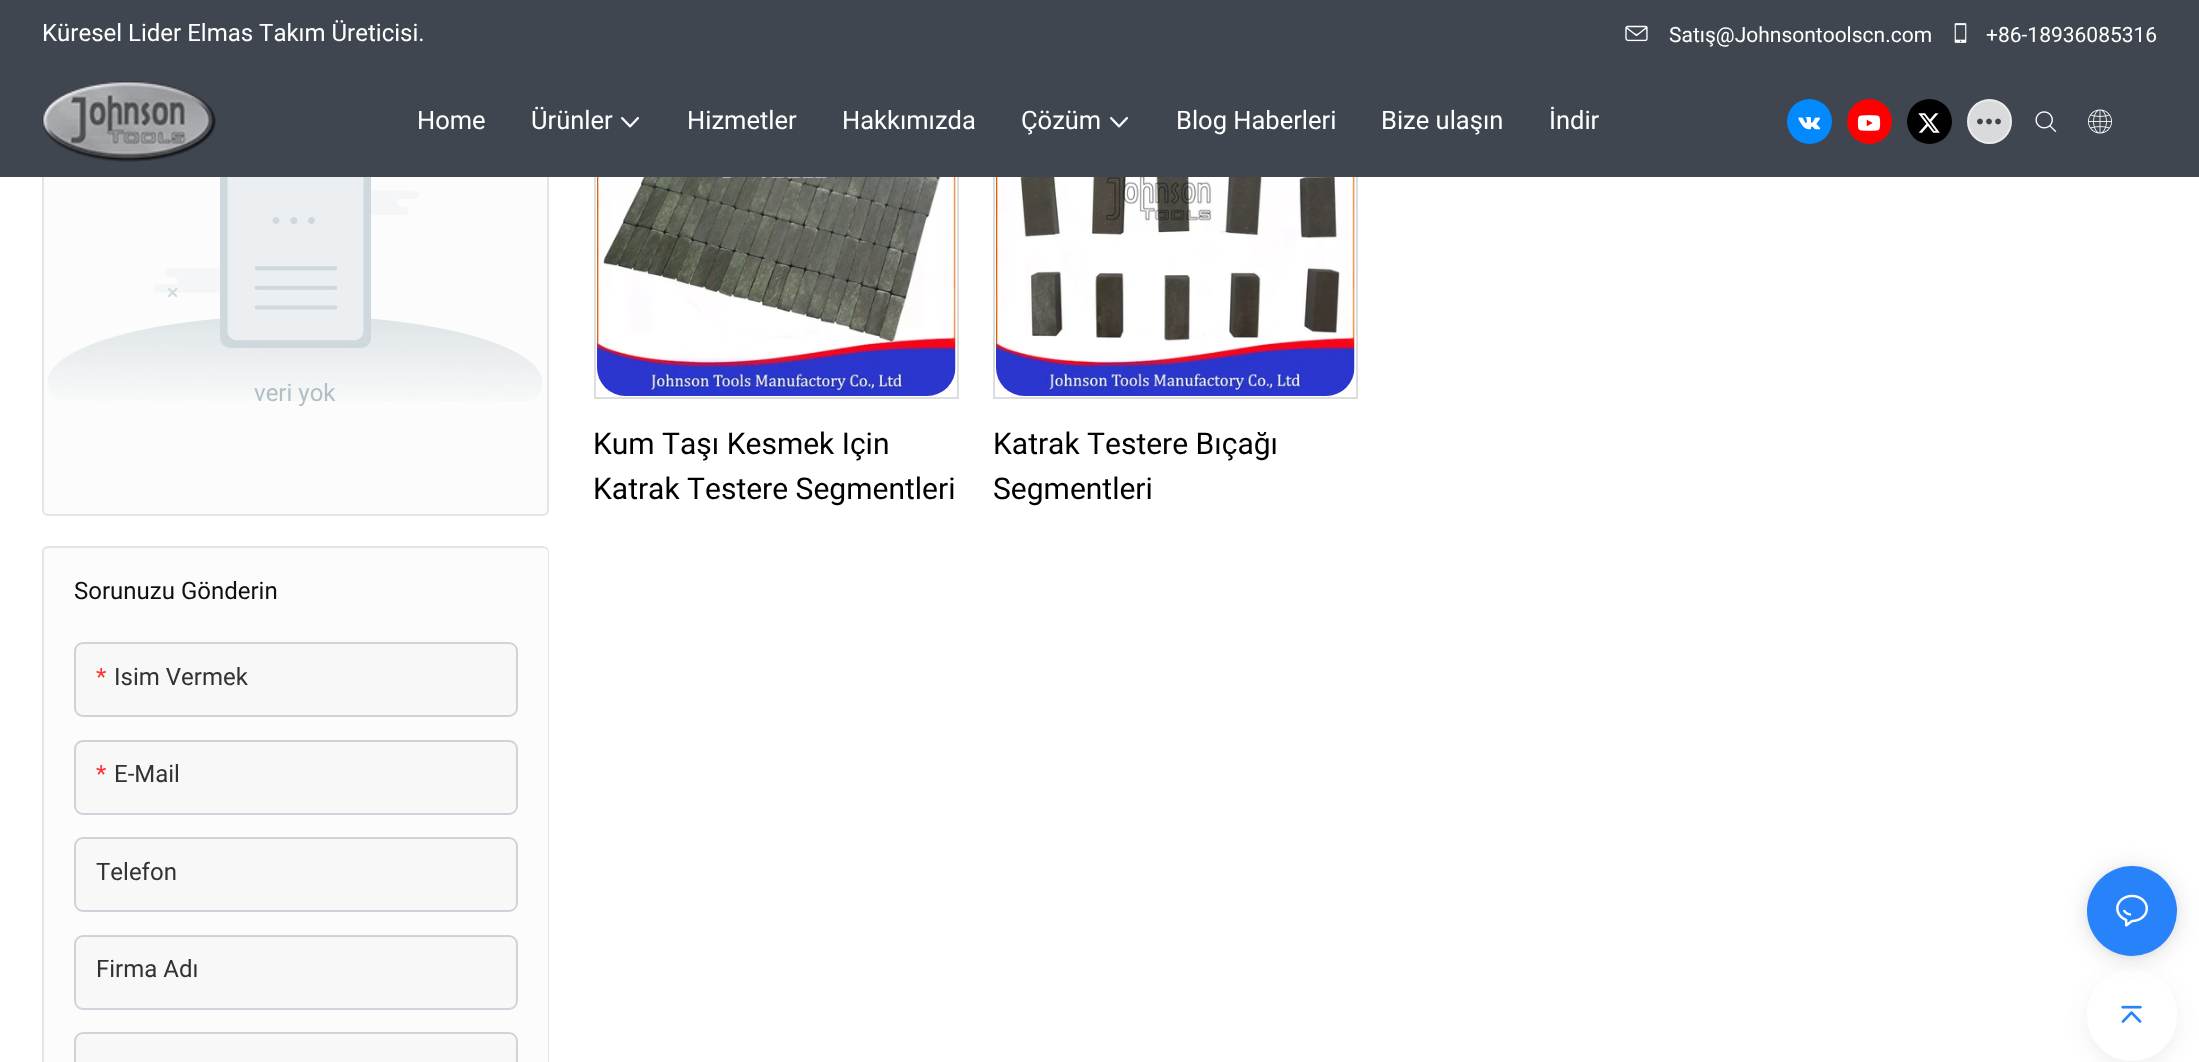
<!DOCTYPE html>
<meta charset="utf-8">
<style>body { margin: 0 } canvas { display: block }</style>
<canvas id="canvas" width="2199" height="1062"></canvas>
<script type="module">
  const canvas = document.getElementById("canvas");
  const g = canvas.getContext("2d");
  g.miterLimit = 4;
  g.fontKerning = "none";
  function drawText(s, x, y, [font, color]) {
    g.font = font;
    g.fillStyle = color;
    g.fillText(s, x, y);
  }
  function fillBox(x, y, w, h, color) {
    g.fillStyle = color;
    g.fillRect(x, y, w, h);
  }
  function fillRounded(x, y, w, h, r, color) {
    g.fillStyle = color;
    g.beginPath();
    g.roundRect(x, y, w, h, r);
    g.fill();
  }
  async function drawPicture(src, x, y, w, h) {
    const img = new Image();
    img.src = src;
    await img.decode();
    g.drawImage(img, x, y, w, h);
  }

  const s1 = ["24px Roboto", "#FFFFFF"];
  const s2 = ["21px Roboto", "#FFFFFF"];
  const s3 = ["25.5px Roboto", "#FFFFFF"];
  const s4 = ["24px Roboto", "#B0BFC5"];
  const s5 = ["24px Roboto", "#101010"];
  const s6 = ["24px Roboto", "#FE3232"];
  const s7 = ["24px Roboto", "#323232"];
  const s8 = ["30px Roboto", "#000000"];

  fillBox(0, 0, 2199, 1062, "#FFFFFF");
  g.fillStyle = "#FCFCFC";
  g.beginPath();
  g.roundRect(43, 36, 505, 479, 5);
  g.fill();
  g.strokeStyle = "#E4E4E4";
  g.lineWidth = 2;
  g.stroke();
  g.strokeStyle = "#DDDDDD";
  g.strokeRect(595, 36, 363, 362);
  g.strokeRect(994, 36, 363, 362);
  fillBox(0, 0, 2199, 177, "#3F464F");
  drawText("Küresel Lider Elmas Takım Üreticisi.", 42, 41, s1);
  await drawPicture("pic1.png", 1625, 25, 23, 17);
  drawText("Satış@Johnsontoolscn.com", 1669, 42, s2);
  await drawPicture("pic2.png", 1954, 23, 13, 20);
  drawText("+86-18936085316", 1986, 42, s2);
  await drawPicture("pic3.png", 42, 81, 174, 81);
  drawText("Home", 417, 129, s3);
  drawText("Ürünler", 531, 129, s3);
  await drawPicture("pic4.png", 621, 117, 18, 11);
  drawText("Hizmetler", 687, 129, s3);
  drawText("Hakkımızda", 842, 129, s3);
  drawText("Çözüm", 1021, 129, s3);
  await drawPicture("pic4.png", 1110, 117, 18, 11);
  drawText("Blog Haberleri", 1176, 129, s3);
  drawText("Bize ulaşın", 1381, 129, s3);
  drawText("İndir", 1549, 129, s3);
  g.fillStyle = "#0189FD";
  g.beginPath();
  g.arc(1809.5, 121.5, 22.5, 0, Math.PI * 2);
  g.fill();
  await drawPicture("pic5.png", 1798, 117, 23, 13);
  g.fillStyle = "#FF0000";
  g.beginPath();
  g.arc(1869.5, 121.5, 22.5, 0, Math.PI * 2);
  g.fill();
  await drawPicture("pic6.png", 1857, 115, 24, 16);
  g.fillStyle = "#000000";
  g.beginPath();
  g.arc(1929.5, 121.5, 22.5, 0, Math.PI * 2);
  g.fill();
  await drawPicture("pic7.png", 1918, 113, 22, 20);
  g.fillStyle = "#D9DADC";
  g.beginPath();
  g.arc(1989.5, 121.5, 21.5, 0, Math.PI * 2);
  g.fill();
  g.strokeStyle = "#EBEBEB";
  g.stroke();
  await drawPicture("pic8.png", 1977, 118, 24, 7);
  await drawPicture("pic9.png", 2035, 111, 22, 21);
  await drawPicture("pic10.png", 2088, 109, 24, 25);
  await drawPicture("pic11.png", 47, 177, 496, 224);
  drawText("veri yok", 254, 401, s4);
  g.fillStyle = "#FCFCFC";
  g.beginPath();
  g.roundRect(42, 546, 507, 89, [6, 6, 0, 0]);
  g.fill();
  g.fillStyle = "#E4E4E4";
  g.beginPath();
  g.moveTo(48, 546);
  g.lineTo(543, 546);
  g.bezierCurveTo(546, 546, 549, 549, 549, 552);
  g.lineTo(549, 634);
  g.lineTo(42, 634);
  g.lineTo(42, 552);
  g.bezierCurveTo(42, 549, 45, 546, 48, 546);
  g.closePath();
  g.moveTo(48, 548);
  g.lineTo(543, 548);
  g.bezierCurveTo(545, 548, 548, 550, 548, 552);
  g.lineTo(548, 634);
  g.lineTo(44, 634);
  g.lineTo(44, 552);
  g.bezierCurveTo(44, 550, 46, 548, 48, 548);
  g.closePath();
  g.fill("evenodd");
  drawText("Sorunuzu Gönderin", 74, 599, s5);
  fillBox(44, 635, 504, 427, "#FCFCFC");
  g.fillStyle = "#E4E4E4";
  g.beginPath();
  g.moveTo(42, 634);
  g.lineTo(549, 634);
  g.lineTo(549, 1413);
  g.bezierCurveTo(549, 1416, 546, 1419, 543, 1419);
  g.lineTo(48, 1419);
  g.bezierCurveTo(45, 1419, 42, 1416, 42, 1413);
  g.closePath();
  g.moveTo(44, 634);
  g.lineTo(548, 634);
  g.lineTo(548, 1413);
  g.bezierCurveTo(548, 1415, 545, 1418, 543, 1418);
  g.lineTo(48, 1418);
  g.bezierCurveTo(46, 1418, 44, 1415, 44, 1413);
  g.closePath();
  g.fill("evenodd");
  fillRounded(75, 644, 441, 72, 8, "#F8F8F8");
  g.beginPath();
  g.roundRect(75, 643, 442, 73, 8);
  g.strokeStyle = "rgba(142, 151, 171, 0.4)";
  g.stroke();
  drawText("*", 96, 685, s6);
  drawText("Isim Vermek", 114, 685, s7);
  fillRounded(75, 741, 441, 72, 8, "#F8F8F8");
  g.beginPath();
  g.roundRect(75, 741, 442, 73, 8);
  g.stroke();
  drawText("*", 96, 782, s6);
  drawText("E-Mail", 114, 782, s7);
  fillRounded(75, 839, 441, 72, 8, "#F8F8F8");
  g.beginPath();
  g.roundRect(75, 838, 442, 73, 8);
  g.stroke();
  drawText("Telefon", 96, 880, s7);
  fillRounded(75, 936, 441, 72, 8, "#F8F8F8");
  g.beginPath();
  g.roundRect(75, 936, 442, 73, 8);
  g.stroke();
  drawText("Firma Adı", 96, 977, s7);
  fillRounded(75, 1034, 441, 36, 8, "#F8F8F8");
  g.beginPath();
  g.roundRect(75, 1033, 442, 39, 8);
  g.stroke();
  await drawPicture("pic12.png", 597, 177, 359, 219);
  drawText("Kum Taşı Kesmek Için", 593, 454, s8);
  drawText("Katrak Testere Segmentleri", 593, 499, s8);
  await drawPicture("pic13.png", 996, 177, 359, 219);
  drawText("Katrak Testere Bıçağı", 993, 454, s8);
  drawText("Segmentleri", 993, 499, s8);
  g.fillStyle = "rgba(40, 47, 54, 0.08)";
  g.filter = "blur(11px)";
  g.beginPath();
  g.roundRect(2087, 977, 90, 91, 45);
  g.fill();
  g.filter = "none";
  fillRounded(2087, 969, 90, 92, 45, "#FFFFFF");
  g.fillStyle = "rgba(0, 0, 0, 0.12)";
  g.filter = "blur(12px)";
  g.beginPath();
  g.roundRect(2087, 869, 90, 90, 45);
  g.fill();
  g.filter = "none";
  g.fillStyle = "rgba(0, 0, 0, 0.06)";
  g.filter = "blur(3px)";
  g.beginPath();
  g.roundRect(2087, 867, 90, 90, 45);
  g.fill();
  g.filter = "none";
  g.fillStyle = "#2882FA";
  g.beginPath();
  g.arc(2132, 911, 45, 0, Math.PI * 2);
  g.fill();
  await drawPicture("pic14.png", 2116, 894, 32, 33);
  await drawPicture("pic15.png", 2121, 1005, 21, 18);
</script>
